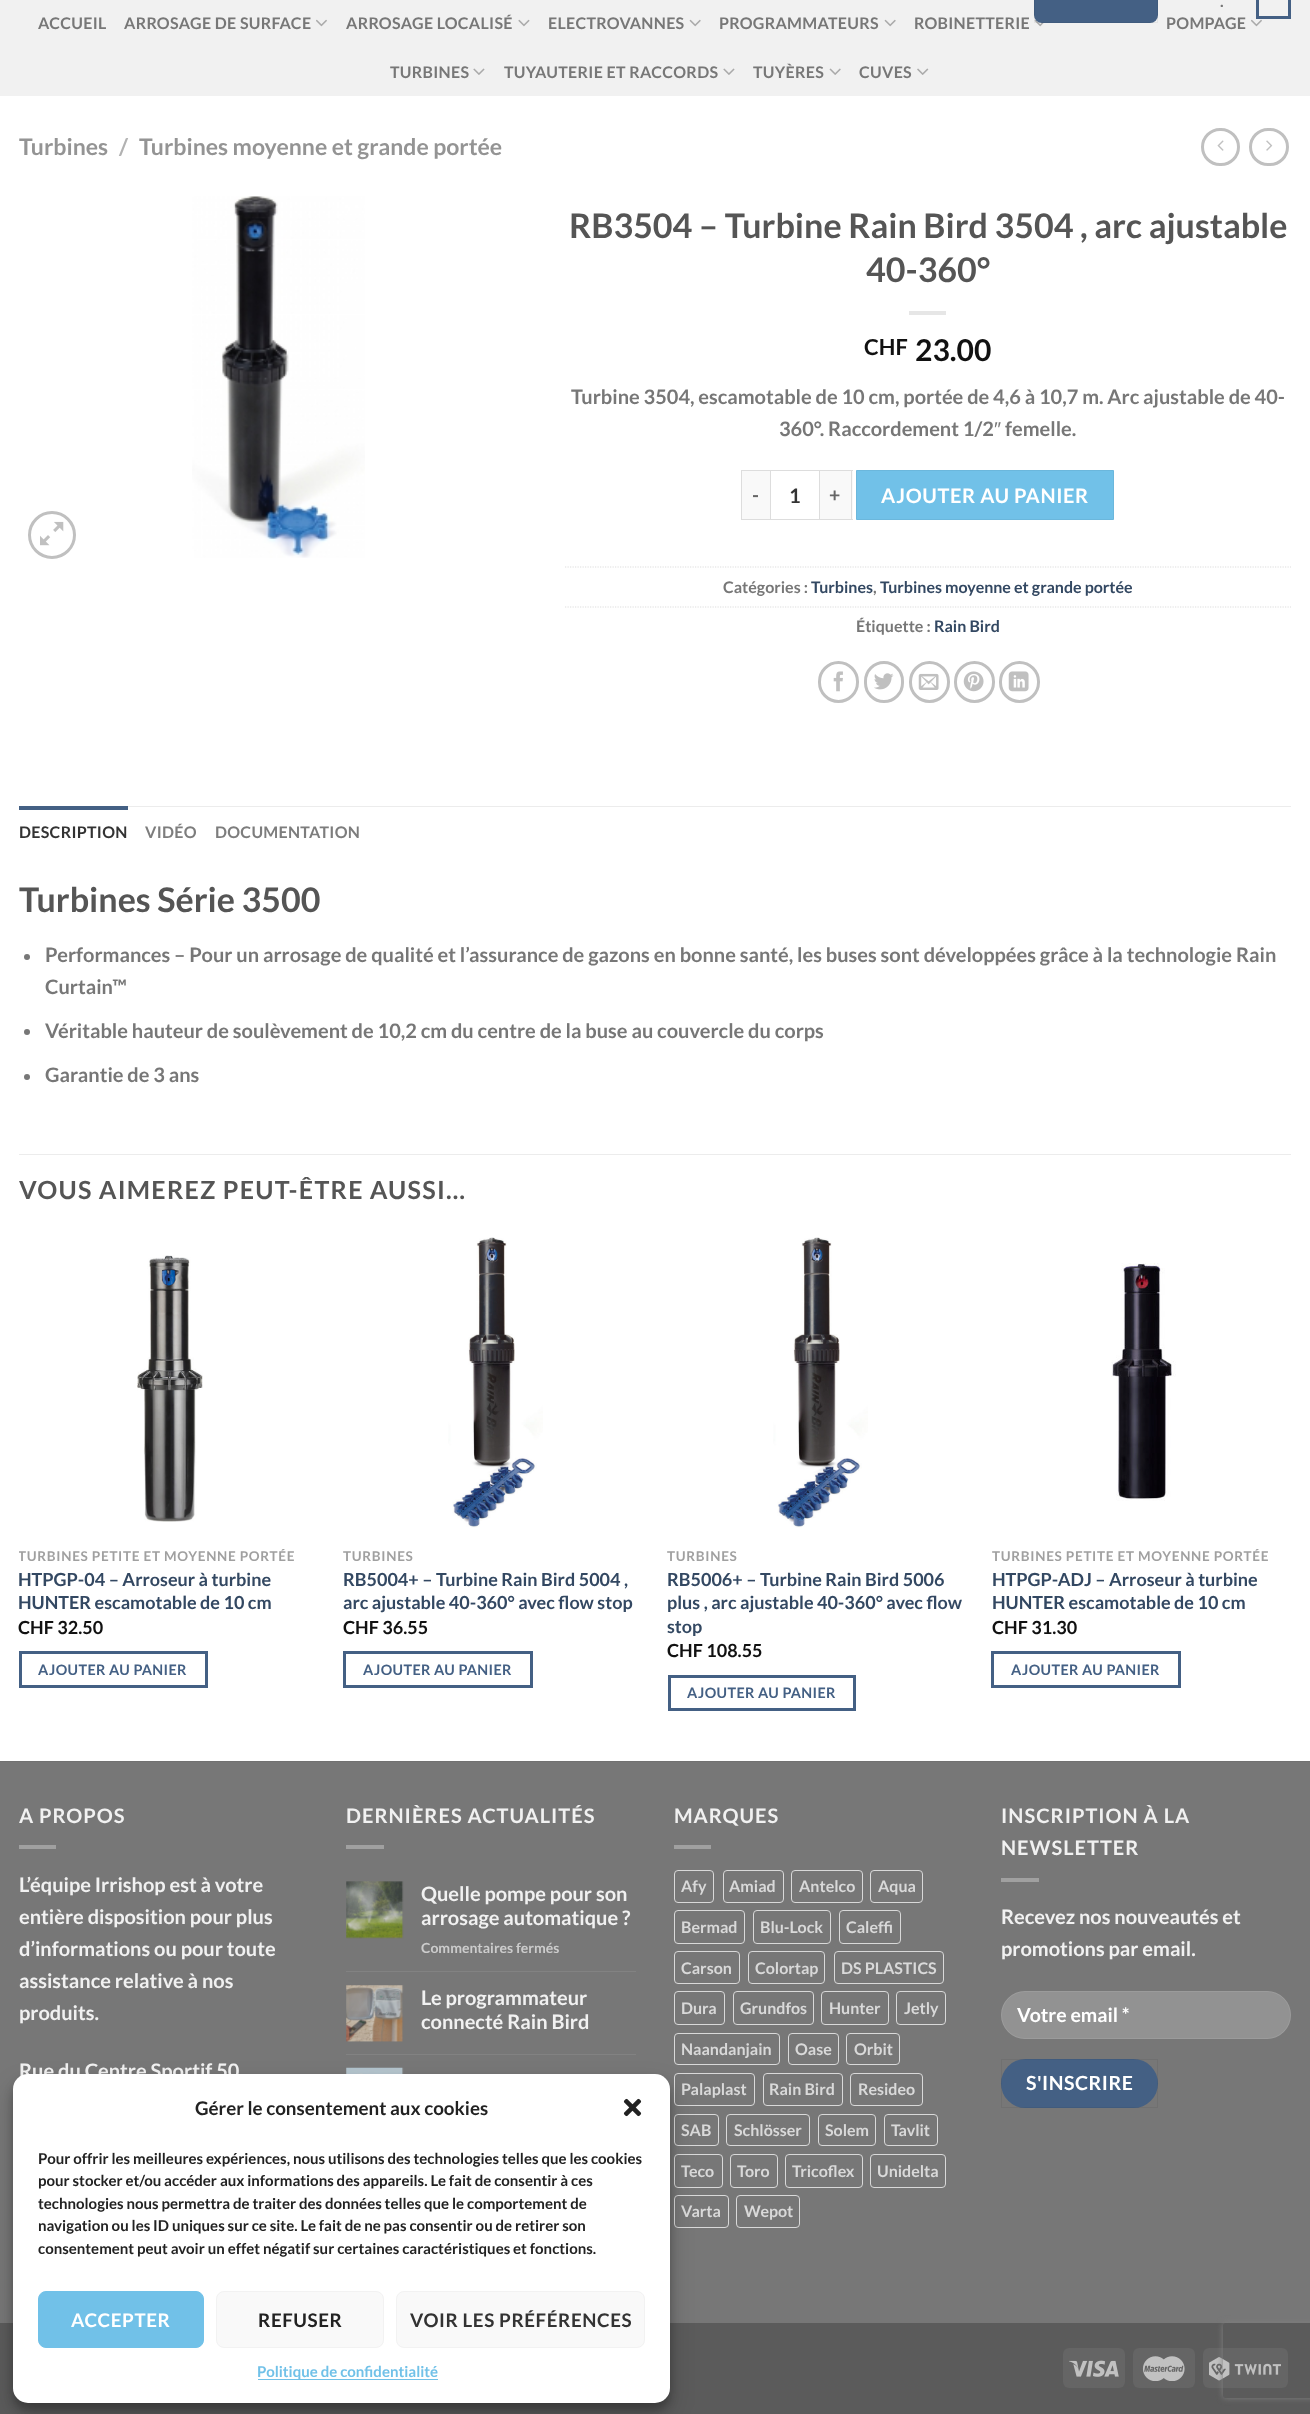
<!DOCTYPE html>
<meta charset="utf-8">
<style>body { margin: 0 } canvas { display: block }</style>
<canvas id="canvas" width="1310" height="2414"></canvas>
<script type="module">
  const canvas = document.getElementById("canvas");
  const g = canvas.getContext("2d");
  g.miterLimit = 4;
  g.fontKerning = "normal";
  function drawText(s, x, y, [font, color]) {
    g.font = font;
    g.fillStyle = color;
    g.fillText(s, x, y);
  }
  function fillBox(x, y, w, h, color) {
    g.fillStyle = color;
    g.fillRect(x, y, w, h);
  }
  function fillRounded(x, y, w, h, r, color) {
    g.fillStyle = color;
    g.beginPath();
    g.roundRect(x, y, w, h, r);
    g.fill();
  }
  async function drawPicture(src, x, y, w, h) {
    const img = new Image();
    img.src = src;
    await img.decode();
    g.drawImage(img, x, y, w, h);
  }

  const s1 = ["bold 16px Lato", "#777777"];
  const s2 = ["bold 23px Lato", "#949494"];
  const s3 = ["bold 23px Lato", "#B2B2B2"];
  const s4 = ["bold 34px Lato", "#555555"];
  const s5 = ["bold 22px Lato", "#111111"];
  const s6 = ["bold 30px Lato", "#111111"];
  const s7 = ["bold 20px Lato", "#777777"];
  const s8 = ["20px Liberation Sans", "#777777"];
  const s9 = ["bold 19.5px Lato", "#666666"];
  const s10 = ["bold 20px Lato", "#333333"];
  const s11 = ["bold 20px Lato", "#FFFFFF"];
  const s12 = ["bold 16px Lato", "#334862"];
  const s13 = ["bold 16px Lato", "#333333"];
  const s14 = ["bold 16px Lato", "#7D7D7D"];
  const s15 = ["bold 25px Lato", "#555555"];
  const s16 = ["bold 13.5px Lato", "#A0A0A0"];
  const s17 = ["bold 18px Lato", "#334862"];
  const s18 = ["bold 18px Lato", "#111111"];
  const s19 = ["bold 14.4px Lato", "#446084"];
  const s20 = ["bold 20px Lato", "#F1F1F1"];
  const s21 = ["bold 14px Lato", "#CCCCCC"];
  const s22 = ["bold 16px Lato", "#D9D9D9"];
  const s23 = ["bold 19.5px Lato", "#FFFFFF"];
  const s24 = ["bold 18.75px Lato", "#222222"];
  const s25 = ["bold 15px Lato", "#222222"];
  const s26 = ["bold 18.75px Lato", "#FFFFFF"];
  const s27 = ["bold 18.75px Lato", "#333333"];
  const s28 = ["bold 15px Lato", "#71C1E8"];

  fillBox(0, 0, 1310, 2414, "#FFFFFF");
  fillBox(0, 0, 1310, 96, "#F1F1F1");
  await drawPicture("pic4.png", 1034, 19, 10, 8);
  fillRounded(1034, -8, 124, 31, 8, "#446084");
  g.strokeStyle = "rgba(0, 0, 0, 0.05)";
  g.strokeRect(1034.5, -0.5, 123, 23);
  g.letterSpacing = "0.3px";
  drawText(".", 1220, 7, s1);
  g.strokeStyle = "#446084";
  g.lineWidth = 3;
  g.strokeRect(1257.5, -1.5, 32, 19);
  drawText("ACCUEIL", 38, 29, s1);
  drawText("ARROSAGE DE SURFACE", 124, 29, s1);
  await drawPicture("pic1.png", 316, 19, 11, 8);
  drawText("ARROSAGE LOCALISÉ", 346, 29, s1);
  await drawPicture("pic2.png", 518, 19, 12, 8);
  drawText("ELECTROVANNES", 548, 29, s1);
  await drawPicture("pic3.png", 689, 19, 12, 8);
  drawText("PROGRAMMATEURS", 719, 29, s1);
  await drawPicture("pic3.png", 884, 19, 12, 8);
  drawText("ROBINETTERIE", 914, 29, s1);
  drawText("POMPAGE", 1166, 29, s1);
  await drawPicture("pic1.png", 1251, 19, 11, 8);
  drawText("TURBINES", 390, 78, s1);
  await drawPicture("pic5.png", 473, 68, 12, 7);
  drawText("TUYAUTERIE ET RACCORDS", 504, 78, s1);
  await drawPicture("pic5.png", 723, 68, 12, 7);
  drawText("TUYÈRES", 753, 78, s1);
  await drawPicture("pic6.png", 829, 68, 12, 7);
  drawText("CUVES", 859, 78, s1);
  await drawPicture("pic7.png", 917, 68, 12, 7);
  g.letterSpacing = "0px";
  drawText("Turbines", 19, 155, s2);
  drawText("/", 119, 155, s3);
  drawText("Turbines moyenne et grande portée", 139, 155, s2);
  g.beginPath();
  g.roundRect(1202.5, 129.5, 36, 35, 17.5);
  g.strokeStyle = "#C0C0C0";
  g.stroke();
  await drawPicture("pic8.png", 1217, 140, 7, 11);
  g.beginPath();
  g.roundRect(1250.5, 129.5, 37, 35, 17.5);
  g.stroke();
  await drawPicture("pic9.png", 1266, 140, 7, 11);
  g.beginPath();
  g.arc(52, 535, 22.5, 0, Math.PI * 2);
  g.stroke();
  await drawPicture("pic10.png", 40, 521, 24, 25);
  await drawPicture("pic11.png", 192, 196, 173, 362);
  drawText("RB3504 – Turbine Rain Bird 3504 , arc ajustable", 569, 238, s4);
  drawText("40-360°", 866, 282, s4);
  fillBox(909, 311, 37, 4, "#E6E6E6");
  drawText("CHF", 864, 355, s5);
  drawText("23.00", 915, 361, s6);
  drawText("Turbine 3504, escamotable de 10 cm, portée de 4,6 à 10,7 m. Arc ajustable de 40-", 571, 404, s7);
  drawText("360°. Raccordement 1/2", 779, 436, s7);
  drawText("″", 994, 436, s8);
  drawText("femelle.", 1005, 436, s7);
  fillBox(742, 471, 28, 48, "#F9F9F9");
  fillBox(741, 470, 29, 1, "#DDDDDD");
  fillBox(741, 519, 29, 1, "#DDDDDD");
  fillBox(741, 470, 1, 50, "#DDDDDD");
  g.letterSpacing = "0.5px";
  drawText("-", 752, 502, s9);
  g.strokeStyle = "#DDDDDD";
  g.lineWidth = 1;
  g.strokeRect(770.5, 470.5, 49, 49);
  g.letterSpacing = "0px";
  drawText("1", 789, 503, s10);
  fillBox(820, 471, 33, 48, "#F9F9F9");
  fillBox(820, 470, 33, 1, "#DDDDDD");
  fillBox(851, 470, 1, 50, "#DDDDDD");
  fillBox(820, 519, 33, 1, "#DDDDDD");
  g.letterSpacing = "0.5px";
  drawText("+", 829, 502, s9);
  g.fillStyle = "#71C1E8";
  g.beginPath();
  g.rect(856.5, 470.5, 257, 49);
  g.fill();
  g.strokeStyle = "#6BB7DC";
  g.stroke();
  g.letterSpacing = "0.6px";
  drawText("AJOUTER AU PANIER", 881, 503, s11);
  g.beginPath();
  g.moveTo(565, 567);
  g.lineTo(1291, 567);
  g.strokeStyle = "#DDDDDD";
  g.lineWidth = 1.2;
  g.setLineDash([1.25, 1.25]);
  g.stroke();
  g.letterSpacing = "0px";
  drawText("Catégories :", 723, 593, s1);
  drawText("Turbines", 811, 593, s12);
  drawText(",", 873, 593, s1);
  drawText("Turbines moyenne et grande portée", 880, 593, s12);
  g.beginPath();
  g.moveTo(565, 607);
  g.lineTo(1291, 607);
  g.stroke();
  drawText("Étiquette :", 856, 632, s1);
  drawText("Rain Bird", 934, 632, s12);
  g.beginPath();
  g.roundRect(819.5, 662.5, 38, 39, 19);
  g.strokeStyle = "#C0C0C0";
  g.lineWidth = 3;
  g.setLineDash([]);
  g.stroke();
  await drawPicture("pic12.png", 833, 671, 10, 21);
  g.beginPath();
  g.roundRect(865.5, 662.5, 37, 39, 18.5);
  g.stroke();
  await drawPicture("pic13.png", 874, 673, 20, 17);
  g.beginPath();
  g.roundRect(910.5, 662.5, 38, 39, 19);
  g.stroke();
  await drawPicture("pic14.png", 918, 673, 21, 17);
  g.beginPath();
  g.roundRect(955.5, 662.5, 38, 39, 19);
  g.stroke();
  await drawPicture("pic15.png", 963, 671, 21, 21);
  g.beginPath();
  g.roundRect(1000.5, 662.5, 38, 39, 19);
  g.stroke();
  await drawPicture("pic16.png", 1008, 671, 21, 21);
  fillBox(128, 806, 1163, 1, "#ECECEC");
  fillBox(19, 806, 109, 4, "#446084");
  g.letterSpacing = "0.3px";
  drawText("DESCRIPTION", 19, 838, s13);
  drawText("VIDÉO", 145, 838, s14);
  drawText("DOCUMENTATION", 215, 838, s14);
  g.letterSpacing = "0px";
  drawText("Turbines Série 3500", 19, 912, s4);
  g.fillStyle = "#777777";
  g.beginPath();
  g.arc(27, 957, 3, 0, Math.PI * 2);
  g.fill();
  drawText("Performances – Pour un arrosage de qualité et l’assurance de gazons en bonne santé, les buses sont développées grâce à la technologie Rain", 45, 962, s7);
  drawText("Curtain™", 45, 994, s7);
  g.beginPath();
  g.arc(27, 1032, 3, 0, Math.PI * 2);
  g.fill();
  drawText("Véritable hauteur de soulèvement de 10,2 cm du centre de la buse au couvercle du corps", 45, 1038, s7);
  g.beginPath();
  g.arc(27, 1077, 3, 0, Math.PI * 2);
  g.fill();
  drawText("Garantie de 3 ans", 45, 1082, s7);
  fillBox(19, 1154, 1272, 1, "#ECECEC");
  g.letterSpacing = "1.25px";
  drawText("VOUS AIMEREZ PEUT-ÊTRE AUSSI…", 19, 1199, s15);
  await drawPicture("pic17.png", 137, 1255, 66, 267);
  g.save();
  g.beginPath();
  g.rect(19, 1549, 300, 16);
  g.clip();
  g.letterSpacing = "0.7px";
  drawText("TURBINES PETITE ET MOYENNE PORTÉE", 18, 1561, s16);
  g.restore();
  g.letterSpacing = "0px";
  drawText("HTPGP-04 – Arroseur à turbine", 18, 1586, s17);
  drawText("HUNTER escamotable de 10 cm", 18, 1609, s17);
  drawText("CHF 32.50", 18, 1634, s18);
  g.strokeStyle = "#446084";
  g.strokeRect(20.5, 1652.5, 186, 34);
  g.letterSpacing = "0.4px";
  drawText("AJOUTER AU PANIER", 38, 1675, s19);
  await drawPicture("pic18.png", 448, 1237, 95, 291);
  g.letterSpacing = "0.7px";
  drawText("TURBINES", 343, 1561, s16);
  g.letterSpacing = "0px";
  drawText("RB5004+ – Turbine Rain Bird 5004 ,", 343, 1586, s17);
  drawText("arc ajustable 40-360° avec flow stop", 343, 1609, s17);
  drawText("CHF 36.55", 343, 1634, s18);
  g.strokeRect(344.5, 1652.5, 187, 34);
  g.letterSpacing = "0.4px";
  drawText("AJOUTER AU PANIER", 363, 1675, s19);
  await drawPicture("pic18.png", 773, 1237, 95, 291);
  g.letterSpacing = "0.7px";
  drawText("TURBINES", 667, 1561, s16);
  g.letterSpacing = "0px";
  drawText("RB5006+ – Turbine Rain Bird 5006", 667, 1586, s17);
  drawText("plus , arc ajustable 40-360° avec flow", 667, 1609, s17);
  drawText("stop", 667, 1633, s17);
  drawText("CHF 108.55", 667, 1657, s18);
  g.strokeRect(669.5, 1676.5, 185, 33);
  g.letterSpacing = "0.4px";
  drawText("AJOUTER AU PANIER", 687, 1698, s19);
  await drawPicture("pic19.png", 1111, 1263, 65, 238);
  g.letterSpacing = "0.7px";
  drawText("TURBINES PETITE ET MOYENNE PORTÉE", 992, 1561, s16);
  g.letterSpacing = "0px";
  drawText("HTPGP-ADJ – Arroseur à turbine", 992, 1586, s17);
  drawText("HUNTER escamotable de 10 cm", 992, 1609, s17);
  drawText("CHF 31.30", 992, 1634, s18);
  g.strokeRect(992.5, 1652.5, 187, 34);
  g.letterSpacing = "0.4px";
  drawText("AJOUTER AU PANIER", 1011, 1675, s19);
  fillBox(0, 1762, 1310, 561, "#777777");
  fillBox(0, 1761, 1310, 1, "#717171");
  g.letterSpacing = "1px";
  drawText("A PROPOS", 19, 1823, s20);
  fillBox(19, 1845, 37, 4, "#A0A0A0");
  g.letterSpacing = "0px";
  drawText("L’équipe Irrishop est à votre", 19, 1892, s20);
  drawText("entière disposition pour plus", 19, 1924, s20);
  drawText("d’informations ou pour toute", 19, 1956, s20);
  drawText("assistance relative à nos", 19, 1988, s20);
  drawText("produits.", 19, 2020, s20);
  drawText("Rue du Centre Sportif 50", 19, 2078, s20);
  g.letterSpacing = "1px";
  drawText("DERNIÈRES ACTUALITÉS", 346, 1823, s20);
  fillBox(346, 1845, 38, 4, "#A0A0A0");
  await drawPicture("pic20.png", 346, 1881, 58, 58);
  g.letterSpacing = "0px";
  drawText("Quelle pompe pour son", 421, 1901, s20);
  drawText("arrosage automatique ?", 421, 1925, s20);
  drawText("Commentaires fermés", 421, 1953, s21);
  fillBox(346, 1971, 290, 1, "#828282");
  await drawPicture("pic21.png", 346, 1985, 58, 57);
  drawText("Le programmateur", 421, 2005, s20);
  drawText("connecté Rain Bird", 421, 2029, s20);
  fillBox(346, 2054, 290, 1, "#828282");
  await drawPicture("pic22.png", 346, 2067, 58, 7);
  g.letterSpacing = "1px";
  drawText("MARQUES", 674, 1823, s20);
  fillBox(674, 1845, 37, 4, "#A0A0A0");
  g.beginPath();
  g.roundRect(674.5, 1870.5, 39, 32, 3.5);
  g.strokeStyle = "#D9D9D9";
  g.lineWidth = 1;
  g.stroke();
  g.letterSpacing = "0px";
  drawText("Afy", 681, 1892, s22);
  g.beginPath();
  g.roundRect(723.5, 1870.5, 60, 32, 3.5);
  g.stroke();
  drawText("Amiad", 729, 1892, s22);
  g.beginPath();
  g.roundRect(791.5, 1870.5, 71, 32, 3.5);
  g.stroke();
  drawText("Antelco", 799, 1892, s22);
  g.beginPath();
  g.roundRect(870.5, 1870.5, 52, 32, 3.5);
  g.stroke();
  drawText("Aqua", 878, 1892, s22);
  g.beginPath();
  g.roundRect(674.5, 1910.5, 70, 33, 3.5);
  g.stroke();
  drawText("Bermad", 681, 1933, s22);
  g.beginPath();
  g.roundRect(753.5, 1910.5, 77, 33, 3.5);
  g.stroke();
  drawText("Blu-Lock", 760, 1933, s22);
  g.beginPath();
  g.roundRect(839.5, 1910.5, 61, 33, 3.5);
  g.stroke();
  drawText("Caleffi", 846, 1933, s22);
  g.beginPath();
  g.roundRect(674.5, 1951.5, 65, 32, 3.5);
  g.stroke();
  drawText("Carson", 681, 1974, s22);
  g.beginPath();
  g.roundRect(748.5, 1951.5, 76, 32, 3.5);
  g.stroke();
  drawText("Colortap", 755, 1974, s22);
  g.beginPath();
  g.roundRect(834.5, 1951.5, 109, 32, 3.5);
  g.stroke();
  drawText("DS PLASTICS", 841, 1974, s22);
  g.beginPath();
  g.roundRect(674.5, 1991.5, 50, 33, 3.5);
  g.stroke();
  drawText("Dura", 681, 2014, s22);
  g.beginPath();
  g.roundRect(733.5, 1991.5, 80, 33, 3.5);
  g.stroke();
  drawText("Grundfos", 740, 2014, s22);
  g.beginPath();
  g.roundRect(821.5, 1991.5, 67, 33, 3.5);
  g.stroke();
  drawText("Hunter", 829, 2014, s22);
  g.beginPath();
  g.roundRect(896.5, 1991.5, 49, 33, 3.5);
  g.stroke();
  drawText("Jetly", 904, 2014, s22);
  g.beginPath();
  g.roundRect(674.5, 2033.5, 105, 31, 3.5);
  g.stroke();
  drawText("Naandanjain", 681, 2055, s22);
  g.beginPath();
  g.roundRect(788.5, 2033.5, 50, 31, 3.5);
  g.stroke();
  drawText("Oase", 795, 2055, s22);
  g.beginPath();
  g.roundRect(846.5, 2033.5, 53, 31, 3.5);
  g.stroke();
  drawText("Orbit", 854, 2055, s22);
  g.beginPath();
  g.roundRect(674.5, 2073.5, 80, 32, 3.5);
  g.stroke();
  drawText("Palaplast", 681, 2095, s22);
  g.beginPath();
  g.roundRect(763.5, 2073.5, 79, 32, 3.5);
  g.stroke();
  drawText("Rain Bird", 769, 2095, s22);
  g.beginPath();
  g.roundRect(850.5, 2073.5, 72, 32, 3.5);
  g.stroke();
  drawText("Resideo", 858, 2095, s22);
  g.beginPath();
  g.roundRect(674.5, 2114.5, 44, 31, 3.5);
  g.stroke();
  drawText("SAB", 681, 2136, s22);
  g.beginPath();
  g.roundRect(726.5, 2114.5, 83, 31, 3.5);
  g.stroke();
  drawText("Schlösser", 734, 2136, s22);
  g.beginPath();
  g.roundRect(818.5, 2114.5, 57, 31, 3.5);
  g.stroke();
  drawText("Solem", 825, 2136, s22);
  g.beginPath();
  g.roundRect(884.5, 2114.5, 53, 31, 3.5);
  g.stroke();
  drawText("Tavlit", 891, 2136, s22);
  g.beginPath();
  g.roundRect(674.5, 2154.5, 48, 33, 3.5);
  g.stroke();
  drawText("Teco", 681, 2177, s22);
  g.beginPath();
  g.roundRect(730.5, 2154.5, 47, 33, 3.5);
  g.stroke();
  drawText("Toro", 737, 2177, s22);
  g.beginPath();
  g.roundRect(785.5, 2154.5, 77, 33, 3.5);
  g.stroke();
  drawText("Tricoflex", 792, 2177, s22);
  g.beginPath();
  g.roundRect(870.5, 2154.5, 75, 33, 3.5);
  g.stroke();
  drawText("Unidelta", 877, 2177, s22);
  g.beginPath();
  g.roundRect(674.5, 2195.5, 54, 32, 3.5);
  g.stroke();
  drawText("Varta", 681, 2217, s22);
  g.beginPath();
  g.roundRect(736.5, 2195.5, 63, 32, 3.5);
  g.stroke();
  drawText("Wepot", 744, 2217, s22);
  g.letterSpacing = "1px";
  drawText("INSCRIPTION À LA", 1001, 1823, s20);
  drawText("NEWSLETTER", 1001, 1855, s20);
  fillBox(1001, 1878, 38, 4, "#A0A0A0");
  g.letterSpacing = "0px";
  drawText("Recevez nos nouveautés et", 1001, 1924, s20);
  drawText("promotions par email.", 1001, 1956, s20);
  fillRounded(1001, 1991, 290, 48, 24, "#929292");
  g.beginPath();
  g.roundRect(1001.5, 1991.5, 289, 47, 23.5);
  g.strokeStyle = "rgba(255, 255, 255, 0.09)";
  g.stroke();
  drawText("Votre email *", 1017, 2022, s23);
  fillRounded(1001, 2059, 157, 49, 24.5, "#446084");
  g.strokeStyle = "rgba(0, 0, 0, 0.05)";
  g.strokeRect(1001.5, 2059.5, 156, 48);
  g.letterSpacing = "0.5px";
  drawText("S'INSCRIRE", 1026, 2090, s23);
  fillBox(0, 2323, 1310, 91, "#5B5B5B");
  fillRounded(1063, 2348, 62, 40, 6, "#656565");
  await drawPicture("pic23.png", 1069, 2360, 50, 17);
  fillRounded(1133, 2348, 62, 40, 6, "#656565");
  await drawPicture("pic24.png", 1142, 2356, 43, 25);
  fillRounded(1203, 2348, 85, 40, 6, "#656565");
  await drawPicture("pic25.png", 1209, 2357, 72, 24);
  g.fillStyle = "rgba(0, 0, 0, 0.23)";
  g.filter = "blur(4px)";
  g.beginPath();
  g.roundRect(13, 2081, 657, 329, 15);
  g.fill();
  g.filter = "none";
  g.fillStyle = "rgba(0, 0, 0, 0.19)";
  g.filter = "blur(12.5px)";
  g.beginPath();
  g.roundRect(13, 2086, 657, 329, 15);
  g.fill();
  g.filter = "none";
  fillRounded(13, 2074, 657, 329, 15, "#FFFFFF");
  g.letterSpacing = "0px";
  drawText("Gérer le consentement aux cookies", 195, 2115, s24);
  await drawPicture("pic26.png", 623, 2098, 19, 19);
  drawText("Pour offrir les meilleures expériences, nous utilisons des technologies telles que les cookies", 38, 2164, s25);
  drawText("pour stocker et/ou accéder aux informations des appareils. Le fait de consentir à ces", 38, 2186, s25);
  drawText("technologies nous permettra de traiter des données telles que le comportement de", 38, 2209, s25);
  drawText("navigation ou les ID uniques sur ce site. Le fait de ne pas consentir ou de retirer son", 38, 2231, s25);
  drawText("consentement peut avoir un effet négatif sur certaines caractéristiques et fonctions.", 38, 2254, s25);
  g.fillStyle = "#71C1E8";
  g.beginPath();
  g.roundRect(38.5, 2291.5, 165, 56, 7.5);
  g.fill();
  g.strokeStyle = "#71C1E8";
  g.stroke();
  g.letterSpacing = "0.6px";
  drawText("ACCEPTER", 71, 2327, s26);
  g.fillStyle = "#F9F9F9";
  g.beginPath();
  g.roundRect(216.5, 2291.5, 167, 56, 7.5);
  g.fill();
  g.strokeStyle = "#F2F2F2";
  g.stroke();
  drawText("REFUSER", 258, 2327, s24);
  g.fillStyle = "#F9F9F9";
  g.beginPath();
  g.roundRect(396.5, 2291.5, 248, 56, 7.5);
  g.fill();
  g.stroke();
  drawText("VOIR LES PRÉFÉRENCES", 410, 2327, s27);
  fillBox(258, 2379, 180, 1, "#71C1E8");
  g.letterSpacing = "0px";
  drawText("Politique de confidentialité", 257, 2377, s28);
  g.save();
  g.beginPath();
  g.moveTo(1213, 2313);
  g.lineTo(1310, 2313);
  g.lineTo(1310, 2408);
  g.lineTo(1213, 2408);
  g.closePath();
  g.moveTo(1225.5, 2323);
  g.lineTo(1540.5, 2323);
  g.bezierCurveTo(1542, 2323, 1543, 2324, 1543, 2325.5);
  g.lineTo(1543, 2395.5);
  g.bezierCurveTo(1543, 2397, 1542, 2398, 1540.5, 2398);
  g.lineTo(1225.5, 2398);
  g.bezierCurveTo(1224, 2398, 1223, 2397, 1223, 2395.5);
  g.lineTo(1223, 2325.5);
  g.bezierCurveTo(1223, 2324, 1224, 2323, 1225.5, 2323);
  g.closePath();
  g.clip("evenodd");
  g.fillStyle = "#808080";
  g.filter = "blur(3px)";
  g.beginPath();
  g.roundRect(1223, 2323, 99, 75, 2.5);
  g.fill();
  g.filter = "none";
  g.restore();
</script>
